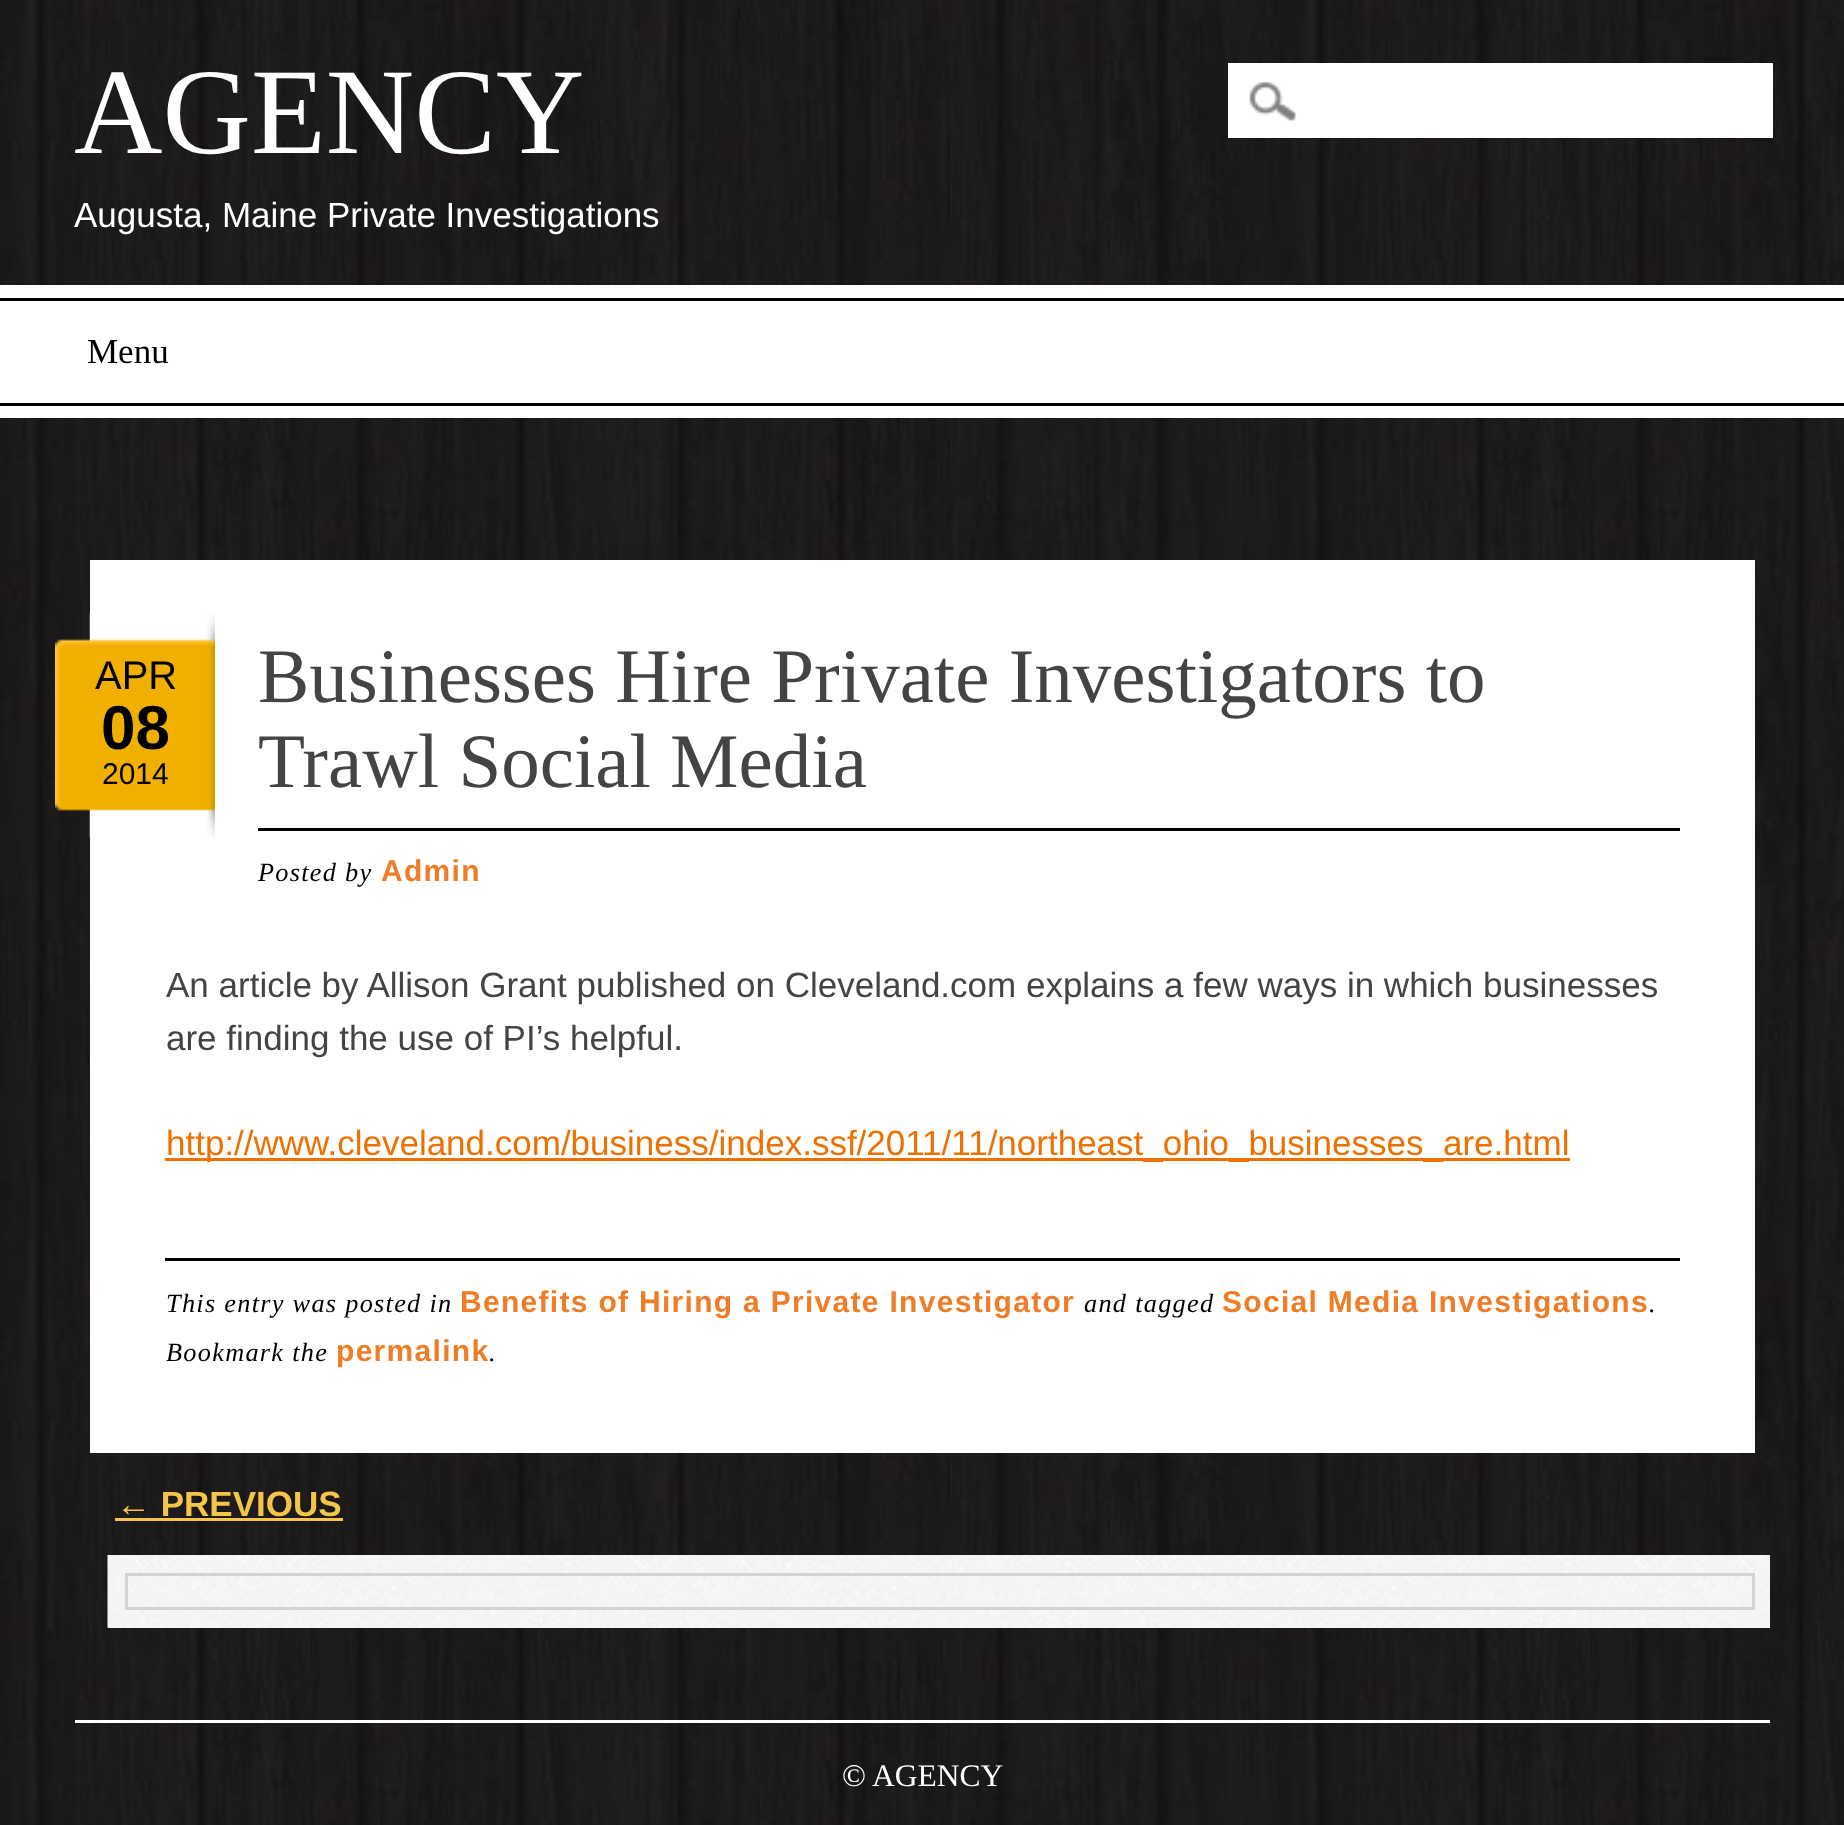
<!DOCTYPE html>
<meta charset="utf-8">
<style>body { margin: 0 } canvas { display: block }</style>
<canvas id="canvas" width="1844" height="1825"></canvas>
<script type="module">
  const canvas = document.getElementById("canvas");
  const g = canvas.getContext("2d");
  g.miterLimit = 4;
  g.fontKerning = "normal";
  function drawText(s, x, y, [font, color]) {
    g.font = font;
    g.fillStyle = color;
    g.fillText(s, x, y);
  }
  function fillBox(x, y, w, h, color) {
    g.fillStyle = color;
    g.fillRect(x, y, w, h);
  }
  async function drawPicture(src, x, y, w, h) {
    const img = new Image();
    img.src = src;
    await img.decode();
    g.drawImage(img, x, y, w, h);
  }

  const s1 = ["122.5px Liberation Serif", "#FFFFFF"];
  const s2 = ["35px Liberation Sans", "#FFFFFF"];
  const s3 = ["35px Liberation Serif", "#000000"];
  const s4 = ["40px Liberation Sans", "#000000"];
  const s5 = ["bold 62px Liberation Sans", "#000000"];
  const s6 = ["30px Liberation Sans", "#000000"];
  const s7 = ["77px Liberation Serif", "#444444"];
  const s8 = ["italic 26.25px Liberation Serif", "#000000"];
  const s9 = ["bold 30px Liberation Sans", "#EF7C26"];
  const s10 = ["35px Liberation Sans", "#444444"];
  const s11 = ["35px Liberation Sans", "#EE7000"];
  const s12 = ["bold 35px Liberation Sans", "#F4C547"];
  const s13 = ["31.5px Liberation Serif", "#FFFFFF"];

  fillBox(0, 0, 1844, 1825, "#FFFFFF");
  await drawPicture("pic1.png", 0, 0, 1844, 1825);
  drawText("AGENCY", 74, 153, s1);
  drawText("Augusta, Maine Private Investigations", 74, 227, s2);
  fillBox(1228, 63, 545, 75, "#FFFFFF");
  await drawPicture("pic2.png", 1249, 81, 48, 40);
  fillBox(0, 285, 1844, 133, "#FFFFFF");
  fillBox(0, 298, 1844, 3, "#000000");
  fillBox(0, 403, 1844, 3, "#000000");
  drawText("Menu", 87, 363, s3);
  fillBox(90, 560, 1665, 893, "#FFFFFF");
  await drawPicture("pic3.png", 55, 612, 160, 226);
  drawText("APR", 95, 689, s4);
  drawText("08", 101, 749, s5);
  drawText("2014", 102, 784, s6);
  fillBox(258, 828, 1422, 3, "#000000");
  drawText("Businesses Hire Private Investigators to", 258, 702, s7);
  drawText("Trawl Social Media", 258, 787, s7);
  g.letterSpacing = "1.3px";
  drawText("Posted by", 258, 881, s8);
  drawText("Admin", 381, 881, s9);
  g.letterSpacing = "0px";
  drawText("An article by Allison Grant published on Cleveland.com explains a few ways in which businesses", 166, 997, s10);
  drawText("are finding the use of PI’s helpful.", 166, 1050, s10);
  fillBox(165, 1158, 1405, 3, "#EE7000");
  drawText("http://www.cleveland.com/business/index.ssf/2011/11/northeast_ohio_businesses_are.html", 166, 1155, s11);
  fillBox(165, 1258, 1515, 3, "#000000");
  g.letterSpacing = "1.3px";
  drawText("This entry was posted in", 166, 1312, s8);
  drawText("Benefits of Hiring a Private Investigator", 460, 1312, s9);
  drawText("and tagged", 1084, 1312, s8);
  drawText("Social Media Investigations", 1222, 1312, s9);
  drawText(".", 1649, 1312, s8);
  drawText("Bookmark the", 166, 1361, s8);
  drawText("permalink", 336, 1361, s9);
  drawText(".", 489, 1361, s8);
  g.letterSpacing = "0px";
  drawText("← PREVIOUS", 116, 1516, s12);
  fillBox(115, 1518, 228, 3, "#F4C547");
  fillBox(108, 1627, 1662, 1, "#F1F1F1");
  await drawPicture("pic4.png", 107, 1555, 1663, 73);
  g.strokeStyle = "#D3D3D3";
  g.lineWidth = 3;
  g.strokeRect(126.5, 1574.5, 1627, 34);
  fillBox(75, 1720, 1695, 3, "#FFFFFF");
  drawText("© AGENCY", 842, 1786, s13);
</script>
